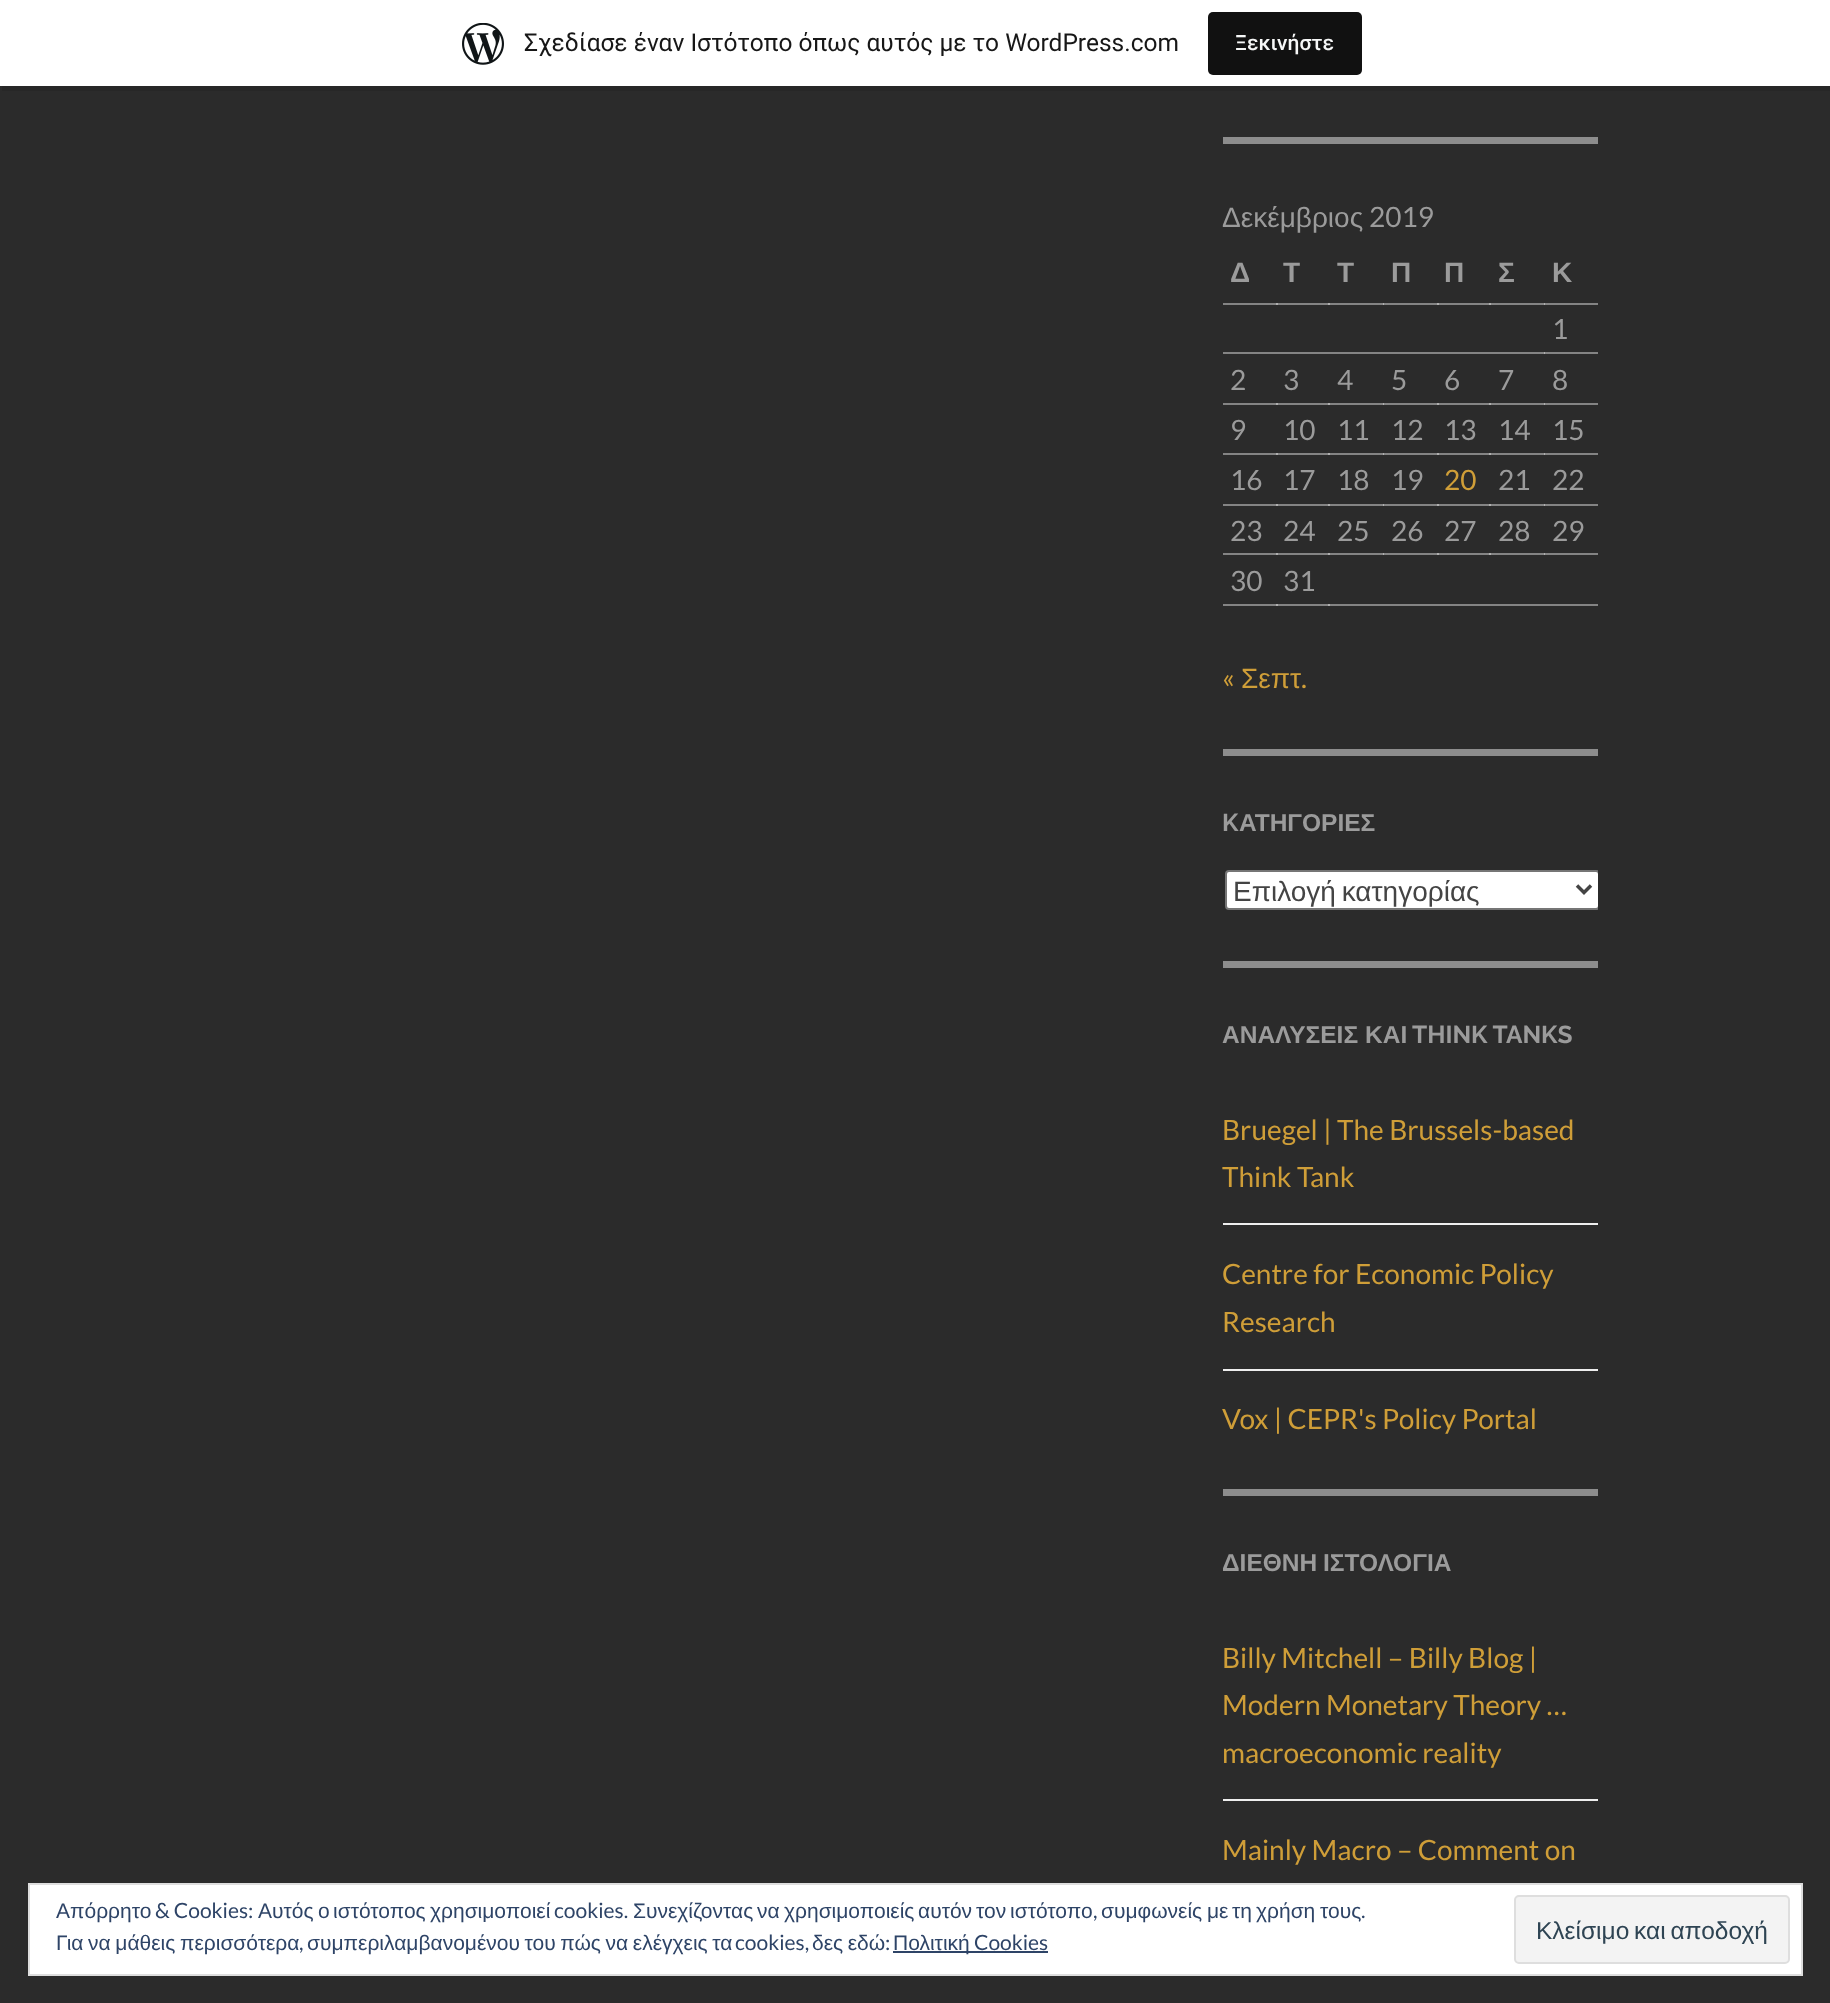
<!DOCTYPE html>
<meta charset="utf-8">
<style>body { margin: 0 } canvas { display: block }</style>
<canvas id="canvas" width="1830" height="2003"></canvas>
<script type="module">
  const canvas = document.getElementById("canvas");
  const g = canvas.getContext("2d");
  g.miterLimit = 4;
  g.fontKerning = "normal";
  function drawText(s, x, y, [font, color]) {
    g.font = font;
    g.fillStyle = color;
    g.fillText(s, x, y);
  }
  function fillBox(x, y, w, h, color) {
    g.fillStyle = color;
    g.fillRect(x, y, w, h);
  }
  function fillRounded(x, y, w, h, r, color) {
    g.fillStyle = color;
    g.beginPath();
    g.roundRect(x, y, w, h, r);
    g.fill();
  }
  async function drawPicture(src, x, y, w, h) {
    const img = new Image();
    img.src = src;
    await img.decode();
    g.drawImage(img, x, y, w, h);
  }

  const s1 = ["24.5px Roboto", "#171717"];
  const s2 = ["500 21px Roboto", "#F6F7F7"];
  const s3 = ["28px Liberation Sans", "#9B9B9B"];
  const s4 = ["28px Lato", "#9B9B9B"];
  const s5 = ["bold 28px Liberation Sans", "#9B9B9B"];
  const s6 = ["28px Lato", "#CF9E38"];
  const s7 = ["28px Liberation Sans", "#CF9E38"];
  const s8 = ["bold 24.5px Raleway", "#9B9B9B"];
  const s9 = ["bold 24.5px Liberation Sans", "#9B9B9B"];
  const s10 = ["28px Liberation Sans", "#444444"];
  const s11 = ["21px Liberation Sans", "#2E4467"];
  const s12 = ["21px Lato", "#2E4467"];
  const s13 = ["24.5px Liberation Sans", "#2E4453"];

  fillBox(0, 0, 1830, 2003, "#2B2B2B");
  fillBox(1223, 303, 375, 2, "#848484");
  fillBox(1276, 303, 2, 2, "#B1B1B1");
  fillBox(1328, 303, 2, 2, "#B1B1B1");
  fillBox(1383, 303, 1, 2, "#B1B1B1");
  fillBox(1437, 303, 2, 2, "#B1B1B1");
  fillBox(1489, 303, 2, 2, "#B1B1B1");
  fillBox(1223, 352, 375, 2, "#848484");
  fillBox(1223, 403, 375, 2, "#848484");
  fillBox(1276, 403, 2, 2, "#B1B1B1");
  fillBox(1328, 403, 2, 2, "#B1B1B1");
  fillBox(1383, 403, 1, 2, "#B1B1B1");
  fillBox(1437, 403, 2, 2, "#B1B1B1");
  fillBox(1489, 403, 2, 2, "#B1B1B1");
  fillBox(1223, 453, 375, 2, "#848484");
  fillBox(1276, 453, 2, 2, "#B1B1B1");
  fillBox(1328, 453, 2, 2, "#B1B1B1");
  fillBox(1383, 453, 1, 2, "#B1B1B1");
  fillBox(1437, 453, 2, 2, "#B1B1B1");
  fillBox(1489, 453, 2, 2, "#B1B1B1");
  fillBox(1223, 504, 375, 2, "#848484");
  fillBox(1276, 504, 2, 2, "#B1B1B1");
  fillBox(1328, 504, 2, 2, "#B1B1B1");
  fillBox(1383, 504, 1, 2, "#B1B1B1");
  fillBox(1437, 504, 2, 2, "#B1B1B1");
  fillBox(1489, 504, 2, 2, "#B1B1B1");
  fillBox(1223, 553, 375, 2, "#848484");
  fillBox(1276, 553, 2, 2, "#B1B1B1");
  fillBox(1328, 553, 2, 2, "#B1B1B1");
  fillBox(1383, 553, 1, 2, "#B1B1B1");
  fillBox(1437, 553, 2, 2, "#B1B1B1");
  fillBox(1489, 553, 2, 2, "#B1B1B1");
  fillBox(1223, 604, 375, 2, "#848484");
  fillBox(1276, 604, 2, 2, "#B1B1B1");
  g.fillStyle = "#272727";
  g.beginPath();
  g.moveTo(2, 86);
  g.lineTo(2, 91);
  g.lineTo(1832, 91);
  g.lineTo(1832, 5);
  g.lineTo(1830, 5);
  g.lineTo(1830, 86);
  g.closePath();
  g.fill();
  fillBox(0, 0, 1830, 86, "#FFFFFF");
  await drawPicture("pic1.png", 462, 23, 42, 42);
  drawText("Σχεδίασε έναν Ιστότοπο όπως αυτός με το WordPress.com", 524, 51, s1);
  fillRounded(1208, 12, 154, 63, 5, "#111111");
  drawText("Ξεκινήστε", 1235, 50, s2);
  fillBox(1223, 137, 375, 7, "#8D8D8D");
  fillBox(1223, 749, 375, 7, "#8D8D8D");
  drawText("Δεκέμβριος", 1222, 227, s3);
  drawText("2019", 1369, 227, s4);
  drawText("Δ", 1230, 282, s5);
  drawText("Τ", 1283, 282, s5);
  drawText("Τ", 1337, 282, s5);
  drawText("Π", 1391, 282, s5);
  drawText("Π", 1444, 282, s5);
  drawText("Σ", 1498, 282, s5);
  fillBox(1544, 303, 1, 2, "#B1B1B1");
  drawText("Κ", 1552, 282, s5);
  fillBox(1544, 352, 1, 2, "#B1B1B1");
  drawText("1", 1552, 339, s4);
  drawText("2", 1230, 390, s4);
  drawText("3", 1283, 390, s4);
  drawText("4", 1337, 390, s4);
  drawText("5", 1391, 390, s4);
  drawText("6", 1444, 390, s4);
  drawText("7", 1498, 390, s4);
  fillBox(1544, 403, 1, 2, "#B1B1B1");
  drawText("8", 1552, 390, s4);
  drawText("9", 1230, 440, s4);
  drawText("10", 1283, 440, s4);
  drawText("11", 1337, 440, s4);
  drawText("12", 1391, 440, s4);
  drawText("13", 1444, 440, s4);
  drawText("14", 1498, 440, s4);
  fillBox(1544, 453, 1, 2, "#B1B1B1");
  drawText("15", 1552, 440, s4);
  drawText("16", 1230, 490, s4);
  drawText("17", 1283, 490, s4);
  drawText("18", 1337, 490, s4);
  drawText("19", 1391, 490, s4);
  drawText("20", 1444, 490, s6);
  drawText("21", 1498, 490, s4);
  fillBox(1544, 504, 1, 2, "#B1B1B1");
  drawText("22", 1552, 490, s4);
  drawText("23", 1230, 541, s4);
  drawText("24", 1283, 541, s4);
  drawText("25", 1337, 541, s4);
  drawText("26", 1391, 541, s4);
  drawText("27", 1444, 541, s4);
  drawText("28", 1498, 541, s4);
  fillBox(1544, 553, 1, 2, "#B1B1B1");
  drawText("29", 1552, 541, s4);
  drawText("30", 1230, 591, s4);
  drawText("31", 1283, 591, s4);
  fillBox(1328, 604, 2, 2, "#B1B1B1");
  drawText("«", 1222, 688, s6);
  drawText("Σεπτ", 1241, 688, s7);
  drawText(".", 1301, 688, s6);
  fillBox(1223, 961, 375, 7, "#8D8D8D");
  drawText("K", 1222, 831, s8);
  drawText("ΑΤΗΓΟΡΙΕΣ", 1239, 831, s9);
  g.save();
  g.beginPath();
  g.rect(1223, 0, 375, 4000);
  g.clip();
  g.fillStyle = "#FFFFFF";
  g.beginPath();
  g.roundRect(1226, 871, 373, 38, 3);
  g.fill();
  g.strokeStyle = "#767676";
  g.lineWidth = 2;
  g.stroke();
  g.restore();
  g.beginPath();
  g.moveTo(1577, 885.5);
  g.lineTo(1584, 892.5);
  g.lineTo(1591, 885.5);
  g.strokeStyle = "#444444";
  g.lineWidth = 3.5;
  g.stroke();
  g.wordSpacing = "-2px";
  drawText("Επιλογή κατηγορίας", 1233, 901, s10);
  fillBox(1223, 1489, 375, 7, "#8D8D8D");
  g.wordSpacing = "0px";
  drawText("ΑΝΑΛΥΣΕΙΣ", 1222, 1043, s9);
  drawText("ΚΑΙ", 1365, 1043, s9);
  drawText("THINK TANKS", 1412, 1043, s8);
  drawText("Bruegel | The Brussels-based", 1222, 1140, s6);
  drawText("Think Tank", 1222, 1187, s6);
  fillBox(1223, 1223, 375, 2, "#EEEEEE");
  drawText("Centre for Economic Policy", 1222, 1284, s6);
  drawText("Research", 1222, 1332, s6);
  fillBox(1223, 1369, 375, 2, "#EEEEEE");
  drawText("Vox | CEPR's Policy Portal", 1222, 1429, s6);
  g.wordSpacing = "-1px";
  drawText("ΔΙΕΘΝΗ ΙΣΤΟΛΟΓΙΑ", 1222, 1571, s9);
  g.wordSpacing = "0px";
  drawText("Billy Mitchell – Billy Blog |", 1222, 1668, s6);
  drawText("Modern Monetary Theory …", 1222, 1715, s6);
  drawText("macroeconomic reality", 1222, 1763, s6);
  fillBox(1223, 1799, 375, 2, "#EEEEEE");
  drawText("Mainly Macro – Comment on", 1222, 1860, s6);
  g.fillStyle = "#FFFFFF";
  g.beginPath();
  g.rect(29, 1884, 1773, 91);
  g.fill();
  g.strokeStyle = "#DEDEDE";
  g.lineWidth = 2;
  g.stroke();
  drawText("Απόρρητο", 56, 1918, s11);
  drawText("& Cookies:", 155, 1918, s12);
  drawText("Αυτός", 258, 1918, s11);
  drawText("ο", 318, 1918, s11);
  drawText("ιστότοπος", 333, 1918, s11);
  drawText("χρησιμοποιεί", 430, 1918, s11);
  drawText("cookies.", 554, 1918, s12);
  drawText("Συνεχίζοντας", 633, 1918, s11);
  drawText("να", 757, 1918, s11);
  drawText("χρησιμοποιείς", 784, 1918, s11);
  drawText("αυτόν", 918, 1918, s11);
  drawText("τον", 976, 1918, s11);
  drawText("ιστότοπο", 1010, 1918, s11);
  drawText(",", 1093, 1918, s12);
  drawText("συμφωνείς", 1101, 1918, s11);
  drawText("με", 1207, 1918, s11);
  drawText("τη", 1232, 1918, s11);
  drawText("χρήση", 1256, 1918, s11);
  drawText("τους", 1320, 1918, s11);
  drawText(".", 1361, 1918, s12);
  g.wordSpacing = "-1.25px";
  drawText("Για να μάθεις περισσότερα", 56, 1950, s11);
  g.wordSpacing = "0px";
  drawText(",", 299, 1950, s12);
  g.wordSpacing = "-1.25px";
  drawText("συμπεριλαμβανομένου του πώς να ελέγχεις τα", 307, 1950, s11);
  g.wordSpacing = "0px";
  drawText("cookies,", 735, 1950, s12);
  g.wordSpacing = "-1.25px";
  drawText("δες εδώ", 812, 1950, s11);
  g.wordSpacing = "0px";
  drawText(":", 885, 1950, s12);
  fillBox(893, 1951, 155, 2, "#2E4467");
  drawText("Πολιτική", 893, 1950, s11);
  drawText("Cookies", 974, 1950, s12);
  g.fillStyle = "#F3F3F3";
  g.beginPath();
  g.roundRect(1515, 1896, 274, 67, 4);
  g.fill();
  g.stroke();
  g.wordSpacing = "-2px";
  drawText("Κλείσιμο και αποδοχή", 1536, 1939, s13);
</script>
